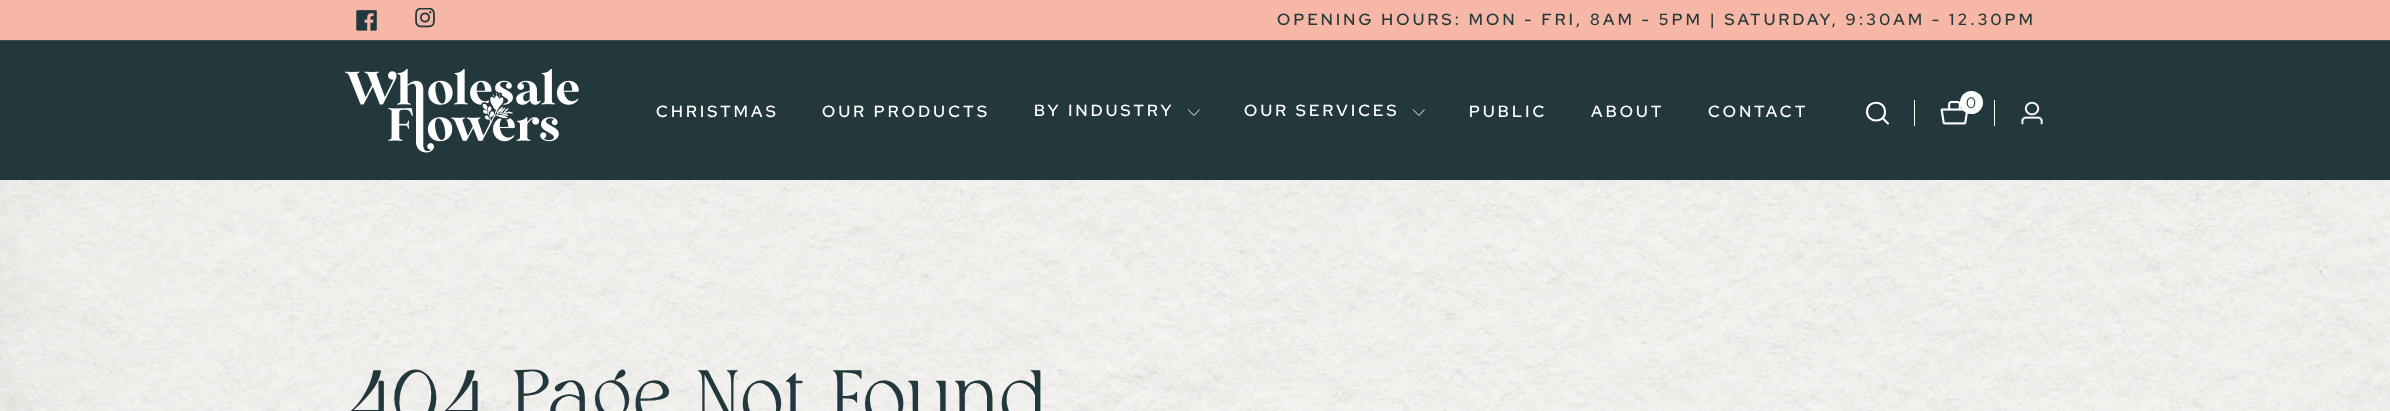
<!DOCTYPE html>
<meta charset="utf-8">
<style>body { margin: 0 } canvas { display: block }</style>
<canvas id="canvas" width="2390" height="411"></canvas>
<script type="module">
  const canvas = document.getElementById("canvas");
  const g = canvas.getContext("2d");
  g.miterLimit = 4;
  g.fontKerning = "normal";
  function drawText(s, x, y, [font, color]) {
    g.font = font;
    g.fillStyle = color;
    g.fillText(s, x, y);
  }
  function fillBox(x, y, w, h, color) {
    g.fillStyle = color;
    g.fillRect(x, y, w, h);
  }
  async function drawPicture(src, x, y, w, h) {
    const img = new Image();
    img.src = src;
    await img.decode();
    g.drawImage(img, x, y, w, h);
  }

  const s1 = ["600 16.25px Red Hat Display", "#23383C"];
  const s2 = ["600 16.25px Red Hat Display", "#FFFFFF"];
  const s3 = ["15px Red Hat Display", "#23383C"];
  const s4 = ["80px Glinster", "#23383C"];

  fillBox(0, 0, 2390, 411, "#FFFFFF");
  await drawPicture("pic1.png", 0, 180, 2390, 231);
  fillBox(0, 0, 2390, 40, "#F7B7A7");
  await drawPicture("pic2.png", 356, 10, 21, 21);
  await drawPicture("pic3.png", 415, 8, 20, 20);
  g.letterSpacing = "3.25px";
  drawText("OPENING HOURS: MON - FRI, 8AM - 5PM | SATURDAY, 9:30AM - 12.30PM", 1277, 25, s1);
  fillBox(0, 41, 2390, 139, "#23383C");
  fillBox(0, 40, 2390, 1, "#394C50");
  await drawPicture("pic4.png", 345, 69, 234, 84);
  drawText("CHRISTMAS", 656, 117, s2);
  drawText("OUR PRODUCTS", 822, 117, s2);
  drawText("BY INDUSTRY", 1034, 116, s2);
  g.beginPath();
  g.moveTo(1188, 109.5);
  g.lineTo(1194, 115.5);
  g.lineTo(1199.5, 109.5);
  g.strokeStyle = "#FFFFFF";
  g.lineWidth = 0.9;
  g.stroke();
  drawText("OUR SERVICES", 1244, 116, s2);
  g.beginPath();
  g.moveTo(1413, 109.5);
  g.lineTo(1419, 115.5);
  g.lineTo(1424.5, 109.5);
  g.stroke();
  drawText("PUBLIC", 1469, 117, s2);
  drawText("ABOUT", 1591, 117, s2);
  drawText("CONTACT", 1708, 117, s2);
  g.beginPath();
  g.moveTo(1883, 118.5);
  g.lineTo(1888, 123.5);
  g.moveTo(1867, 111.5);
  g.bezierCurveTo(1867, 123.5, 1885.5, 123.5, 1885, 111.5);
  g.bezierCurveTo(1884.5, 99.5, 1867, 100, 1867, 111.5);
  g.closePath();
  g.lineWidth = 2.1;
  g.lineCap = "round";
  g.lineJoin = "round";
  g.stroke();
  fillBox(1914, 100, 1, 26, "#FFFFFF");
  await drawPicture("pic5.png", 1940, 100, 28, 25);
  g.beginPath();
  g.arc(1971.5, 102.5, 11.5, 0, Math.PI * 2);
  g.fill();
  g.letterSpacing = "0px";
  drawText("0", 1966, 108, s3);
  fillBox(1994, 100, 1, 26, "#FFFFFF");
  await drawPicture("pic6.png", 2021, 101, 22, 24);
  g.letterSpacing = "1.6px";
  drawText("404 Page Not Found", 345, 426, s4);
</script>
